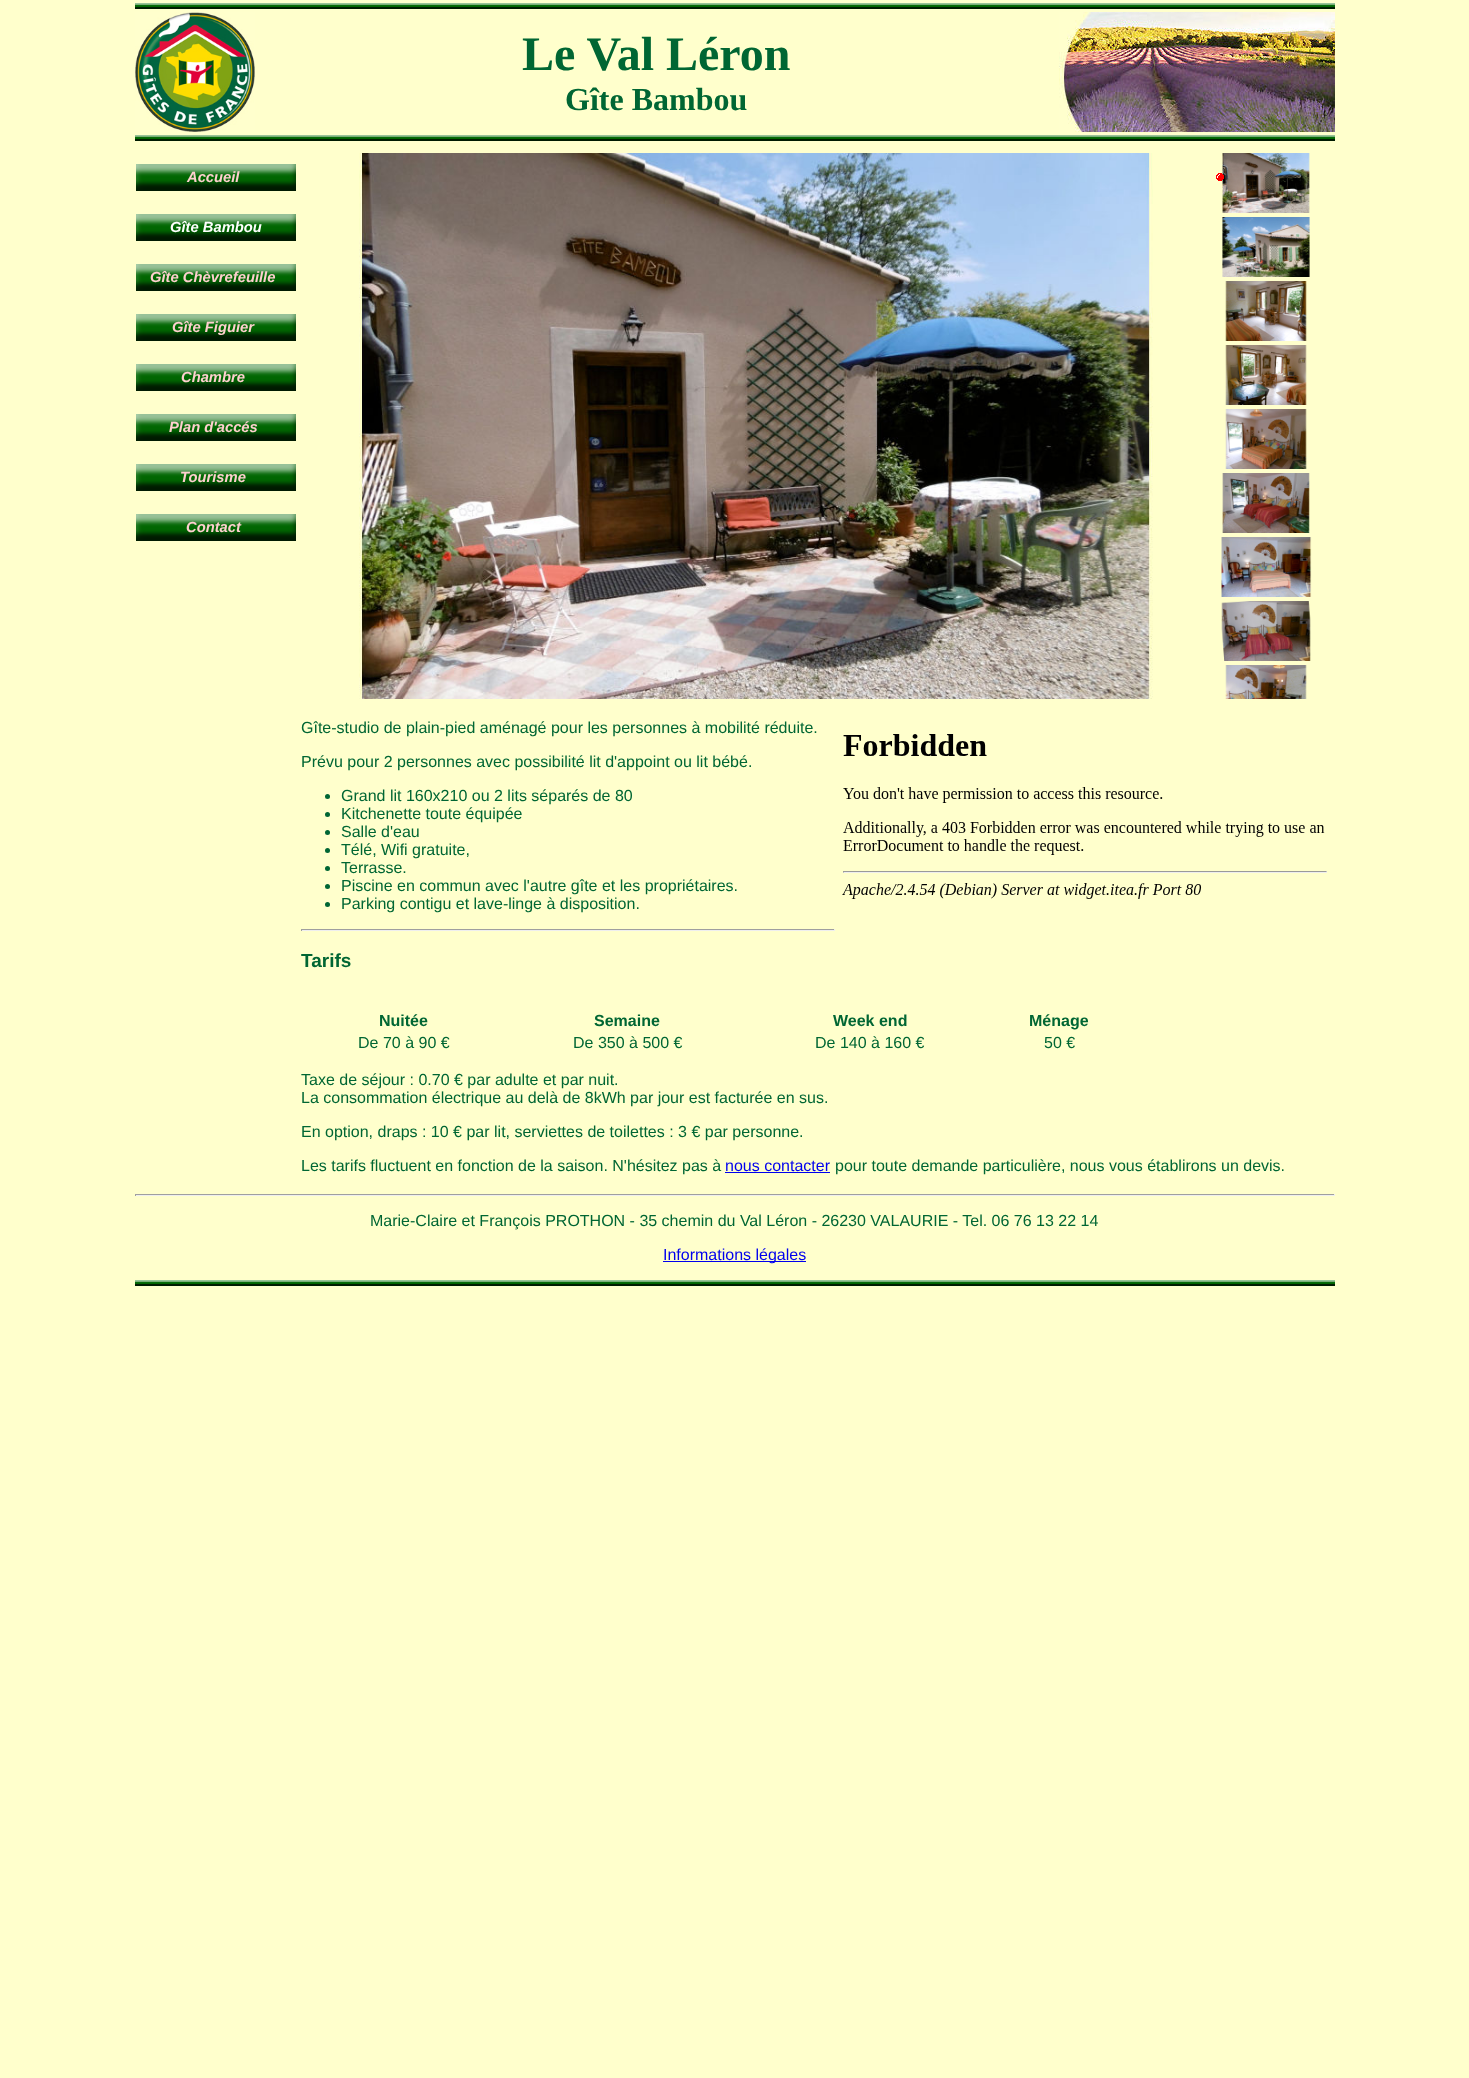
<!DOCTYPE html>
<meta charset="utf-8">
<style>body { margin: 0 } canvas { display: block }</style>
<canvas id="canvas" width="1469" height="2078"></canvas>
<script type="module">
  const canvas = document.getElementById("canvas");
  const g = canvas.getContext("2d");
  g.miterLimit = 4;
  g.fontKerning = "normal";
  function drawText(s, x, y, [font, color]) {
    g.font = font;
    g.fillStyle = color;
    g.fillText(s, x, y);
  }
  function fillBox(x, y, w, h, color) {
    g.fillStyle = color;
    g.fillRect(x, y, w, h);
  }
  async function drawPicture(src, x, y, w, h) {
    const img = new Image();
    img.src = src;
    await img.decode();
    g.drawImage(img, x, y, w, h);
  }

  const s1 = ["bold 48px Liberation Serif", "#006633"];
  const s2 = ["bold 32px Liberation Serif", "#006633"];
  const s3 = ["italic bold 14.75px Liberation Sans", "#FFD0D0"];
  const s4 = ["italic bold 14.75px Liberation Sans", "#FFFFFF"];
  const s5 = ["16px Liberation Sans", "#006633"];
  const s6 = ["bold 19px Liberation Sans", "#006633"];
  const s7 = ["bold 16px Liberation Sans", "#006633"];
  const s8 = ["16px Liberation Sans", "#0000EE"];

  fillBox(0, 0, 1469, 2078, "#FFFFCC");
  await drawPicture("pic1.png", 135, 3, 1200, 6);
  await drawPicture("pic2.png", 135, 12, 120, 120);
  drawText("Le Val Léron", 522, 70, s1);
  await drawPicture("pic3.png", 1059, 12, 276, 120);
  drawText("Gîte Bambou", 565, 110, s2);
  await drawPicture("pic1.png", 135, 135, 1200, 6);
  await drawPicture("pic4.png", 136, 164, 160, 27);
  drawText("Accueil", 187, 182, s3);
  await drawPicture("pic4.png", 136, 214, 160, 27);
  drawText("Gîte Bambou", 170, 232, s4);
  await drawPicture("pic4.png", 136, 264, 160, 27);
  drawText("Gîte Chèvrefeuille", 150, 282, s3);
  await drawPicture("pic4.png", 136, 314, 160, 27);
  drawText("Gîte Figuier", 172, 332, s3);
  await drawPicture("pic4.png", 136, 364, 160, 27);
  drawText("Chambre", 181, 382, s3);
  await drawPicture("pic4.png", 136, 414, 160, 27);
  drawText("Plan d'accés", 169, 432, s3);
  await drawPicture("pic4.png", 136, 464, 160, 27);
  drawText("Tourisme", 180, 482, s3);
  await drawPicture("pic4.png", 136, 514, 160, 27);
  drawText("Contact", 186, 532, s3);
  await drawPicture("pic5.png", 359, 153, 794, 546);
  await drawPicture("pic7.png", 1222, 153, 88, 60);
  await drawPicture("pic6.png", 1216, 173, 8, 8);
  await drawPicture("pic8.png", 1222, 217, 88, 60);
  await drawPicture("pic9.png", 1225, 281, 82, 60);
  await drawPicture("pic10.png", 1225, 345, 82, 60);
  await drawPicture("pic11.png", 1225, 409, 82, 60);
  await drawPicture("pic12.png", 1222, 473, 88, 60);
  await drawPicture("pic13.png", 1221, 537, 91, 60);
  await drawPicture("pic14.png", 1221, 601, 90, 60);
  await drawPicture("pic15.png", 1225, 665, 82, 34);
  drawText("Gîte-studio de plain-pied aménagé pour les personnes à mobilité réduite.", 301, 733, s5);
  drawText("Prévu pour 2 personnes avec possibilité lit d'appoint ou lit bébé.", 301, 767, s5);
  await drawPicture("pic16.png", 842, 734, 485, 165);
  g.beginPath();
  g.arc(327.5, 796.5, 2.5, 0, Math.PI * 2);
  g.fill();
  drawText("Grand lit 160x210 ou 2 lits séparés de 80", 341, 801, s5);
  g.beginPath();
  g.arc(327.5, 814.5, 2.5, 0, Math.PI * 2);
  g.fill();
  drawText("Kitchenette toute équipée", 341, 819, s5);
  g.beginPath();
  g.arc(327.5, 832.5, 2.5, 0, Math.PI * 2);
  g.fill();
  drawText("Salle d'eau", 341, 837, s5);
  g.beginPath();
  g.arc(327.5, 850.5, 2.5, 0, Math.PI * 2);
  g.fill();
  drawText("Télé, Wifi gratuite,", 341, 855, s5);
  g.beginPath();
  g.arc(327.5, 868.5, 2.5, 0, Math.PI * 2);
  g.fill();
  drawText("Terrasse.", 341, 873, s5);
  g.beginPath();
  g.arc(327.5, 886.5, 2.5, 0, Math.PI * 2);
  g.fill();
  drawText("Piscine en commun avec l'autre gîte et les propriétaires.", 341, 891, s5);
  g.beginPath();
  g.arc(327.5, 904.5, 2.5, 0, Math.PI * 2);
  g.fill();
  drawText("Parking contigu et lave-linge à disposition.", 341, 909, s5);
  fillBox(301, 929, 534, 1, "#9F9F9F");
  fillBox(834, 929, 1, 2, "#EEEEEE");
  fillBox(301, 930, 534, 1, "#EEEEEE");
  fillBox(301, 929, 1, 2, "#9F9F9F");
  drawText("Tarifs", 301, 967, s6);
  drawText("Nuitée", 379, 1026, s7);
  drawText("Semaine", 594, 1026, s7);
  drawText("Week end", 833, 1026, s7);
  drawText("Ménage", 1029, 1026, s7);
  drawText("De 70 à 90 €", 358, 1048, s5);
  drawText("De 350 à 500 €", 573, 1048, s5);
  drawText("De 140 à 160 €", 815, 1048, s5);
  drawText("50 €", 1044, 1048, s5);
  drawText("Taxe de séjour : 0.70 € par adulte et par nuit.", 301, 1085, s5);
  drawText("La consommation électrique au delà de 8kWh par jour est facturée en sus.", 301, 1103, s5);
  drawText("En option, draps : 10 € par lit, serviettes de toilettes : 3 € par personne.", 301, 1137, s5);
  drawText("Les tarifs fluctuent en fonction de la saison. N'hésitez pas à", 301, 1171, s5);
  drawText("nous contacter", 725, 1171, s8);
  fillBox(725, 1172, 105, 1, "#0000EE");
  drawText("pour toute demande particulière, nous vous établirons un devis.", 835, 1171, s5);
  fillBox(135, 1194, 1200, 1, "#9F9F9F");
  fillBox(1334, 1194, 1, 2, "#EEEEEE");
  fillBox(135, 1195, 1200, 1, "#EEEEEE");
  fillBox(135, 1194, 1, 2, "#9F9F9F");
  drawText("Marie-Claire et François PROTHON - 35 chemin du Val Léron - 26230 VALAURIE - Tel. 06 76 13 22 14", 370, 1226, s5);
  fillBox(663, 1261, 143, 1, "#0000EE");
  drawText("Informations légales", 663, 1260, s8);
  await drawPicture("pic1.png", 135, 1280, 1200, 6);
</script>
